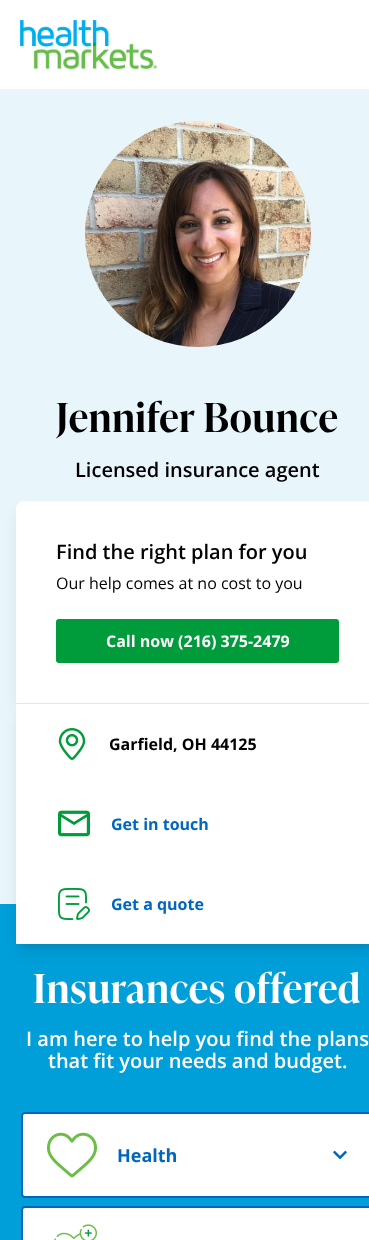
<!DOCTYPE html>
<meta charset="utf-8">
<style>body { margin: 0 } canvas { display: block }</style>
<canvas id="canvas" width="369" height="1240"></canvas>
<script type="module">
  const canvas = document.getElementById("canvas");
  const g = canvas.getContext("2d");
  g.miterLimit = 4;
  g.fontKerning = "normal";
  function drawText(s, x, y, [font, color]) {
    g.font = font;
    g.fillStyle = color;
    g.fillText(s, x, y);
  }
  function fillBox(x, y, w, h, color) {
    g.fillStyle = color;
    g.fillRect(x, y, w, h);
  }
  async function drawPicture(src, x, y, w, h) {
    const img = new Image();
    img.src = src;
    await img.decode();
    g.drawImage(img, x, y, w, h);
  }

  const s1 = ["600 40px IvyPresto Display", "#000000"];
  const s2 = ["600 20px Open Sans", "#000000"];
  const s3 = ["16px Open Sans", "#000000"];
  const s4 = ["bold 16px Open Sans", "#FFFFFF"];
  const s5 = ["bold 16px Open Sans", "#000000"];
  const s6 = ["bold 16px Open Sans", "#0065BD"];
  const s7 = ["600 40px IvyPresto Display", "#FFFFFF"];
  const s8 = ["600 20px Open Sans", "#FFFFFF"];
  const s9 = ["bold 18px Open Sans", "#0065BD"];

  fillBox(0, 0, 369, 1240, "#FFFFFF");
  await drawPicture("pic1.png", 20, 20, 137, 49);
  fillBox(0, 89, 369, 815, "#E8F5FB");
  await drawPicture("pic2.png", 85, 121, 226, 226);
  g.letterSpacing = "0.75px";
  drawText("Jennifer Bounce", 56, 432, s1);
  g.letterSpacing = "0px";
  drawText("Licensed insurance agent", 75, 477, s2);
  g.fillStyle = "rgba(0, 0, 0, 0.1)";
  g.filter = "blur(7.5px)";
  g.beginPath();
  g.roundRect(19, 514, 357, 196, 5);
  g.fill();
  g.filter = "none";
  g.fillStyle = "#FFFFFF";
  g.beginPath();
  g.moveTo(24, 501);
  g.lineTo(369, 501);
  g.bezierCurveTo(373.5, 501, 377, 504.5, 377, 509);
  g.lineTo(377, 703);
  g.lineTo(16, 703);
  g.lineTo(16, 509);
  g.bezierCurveTo(16, 504.5, 19.5, 501, 24, 501);
  g.closePath();
  g.fill();
  drawText("Find the right plan for you", 56, 559, s2);
  drawText("Our help comes at no cost to you", 56, 589, s3);
  g.fillStyle = "#009B3A";
  g.beginPath();
  g.roundRect(57, 620, 281, 42, 2);
  g.fill();
  g.strokeStyle = "#009B3A";
  g.lineWidth = 2;
  g.stroke();
  drawText("Call now (216) 375-2479", 106, 647, s4);
  fillBox(0, 904, 369, 336, "#009FDA");
  g.fillStyle = "rgba(0, 0, 0, 0.1)";
  g.filter = "blur(3px)";
  g.beginPath();
  g.roundRect(20, 711, 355, 233, 4);
  g.fill();
  g.filter = "none";
  g.filter = "blur(7.5px)";
  g.beginPath();
  g.roundRect(19, 716, 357, 235, 5);
  g.fill();
  g.filter = "none";
  g.fillStyle = "#FFFFFF";
  g.beginPath();
  g.moveTo(16, 704);
  g.lineTo(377, 704);
  g.lineTo(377, 936);
  g.bezierCurveTo(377, 940.5, 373.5, 944, 369, 944);
  g.lineTo(24, 944);
  g.bezierCurveTo(19.5, 944, 16, 940.5, 16, 936);
  g.closePath();
  g.fill();
  fillBox(16, 703, 353, 1, "#E5E7EB");
  await drawPicture("pic3.png", 58, 728, 28, 32);
  drawText("Garfield, OH 44125", 109, 750, s5);
  await drawPicture("pic4.png", 58, 810, 32, 27);
  drawText("Get in touch", 111, 830, s6);
  g.strokeStyle = "#FFFFFF";
  g.strokeRect(17, 865, 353, 78);
  await drawPicture("pic5.png", 58, 888, 32, 32);
  drawText("Get a quote", 111, 910, s6);
  g.letterSpacing = "0.75px";
  drawText("Insurances offered", 33, 1003, s7);
  g.letterSpacing = "0px";
  drawText("I am here to help you find the plans", 26, 1046, s8);
  drawText("that fit your needs and budget.", 48, 1068, s8);
  g.beginPath();
  g.roundRect(22, 1113, 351, 84, 3);
  g.fill();
  g.strokeStyle = "#0065BD";
  g.stroke();
  await drawPicture("pic6.png", 47, 1132, 50, 46);
  drawText("Health", 117, 1162, s9);
  await drawPicture("pic7.png", 333, 1150, 14, 10);
  g.fillStyle = "#FFFFFF";
  g.beginPath();
  g.roundRect(22, 1207, 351, 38, 3);
  g.fill();
  g.stroke();
  await drawPicture("pic8.png", 54, 1224, 43, 16);
</script>
